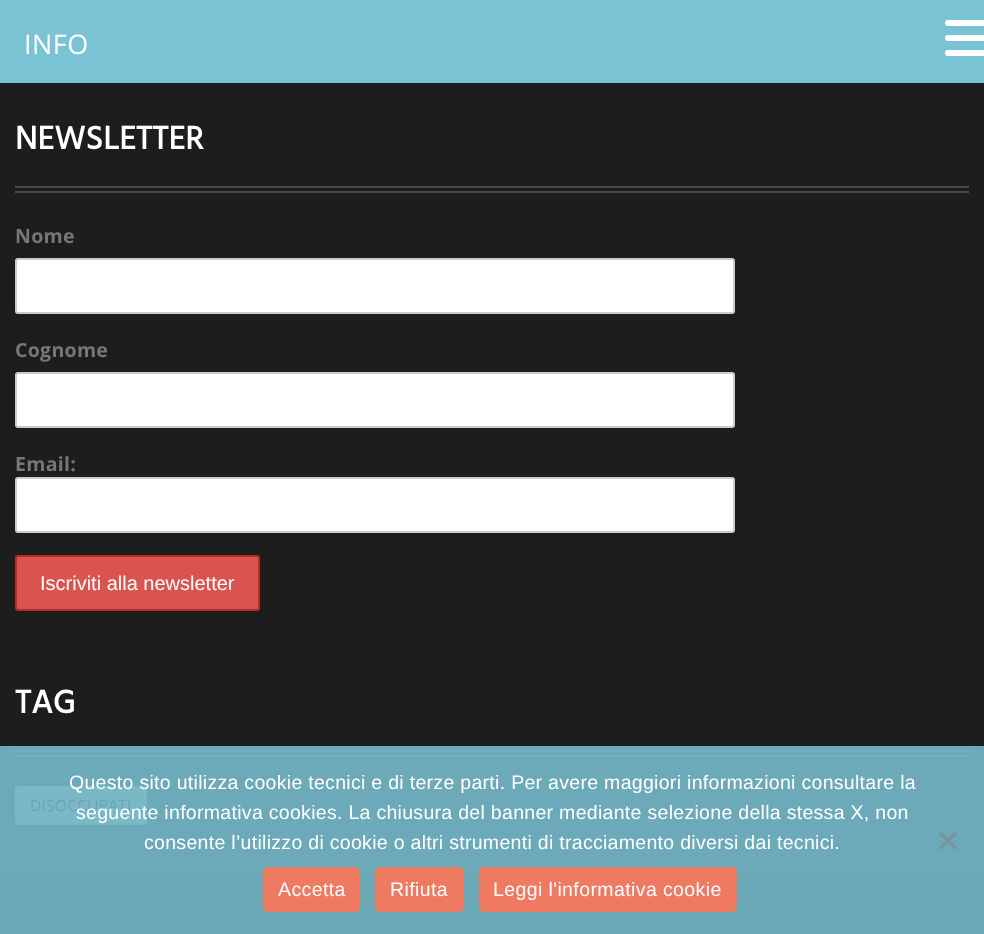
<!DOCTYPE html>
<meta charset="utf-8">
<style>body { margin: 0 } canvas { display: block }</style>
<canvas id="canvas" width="984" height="934"></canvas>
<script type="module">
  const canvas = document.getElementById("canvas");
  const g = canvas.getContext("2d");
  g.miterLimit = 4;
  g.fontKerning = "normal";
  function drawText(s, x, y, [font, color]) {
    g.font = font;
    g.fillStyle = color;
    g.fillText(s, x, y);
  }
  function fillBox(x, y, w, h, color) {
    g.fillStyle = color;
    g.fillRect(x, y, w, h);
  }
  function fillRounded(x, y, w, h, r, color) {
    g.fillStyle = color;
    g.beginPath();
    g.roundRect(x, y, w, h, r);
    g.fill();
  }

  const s1 = ["27px Open Sans", "#FFFFFF"];
  const s2 = ["bold 33px Hind", "#FFFFFF"];
  const s3 = ["bold 19.5px Open Sans", "#777777"];
  const s4 = ["20px Liberation Sans", "#FFFFFF"];
  const s5 = ["15.5px Open Sans", "#68A6B4"];
  const s6 = ["19.5px Liberation Sans", "#FFFFFF"];

  fillBox(0, 0, 984, 934, "#1D1D1D");
  fillBox(0, 0, 984, 83, "#7AC3D4");
  g.letterSpacing = "0.5px";
  drawText("INFO", 24, 54, s1);
  fillRounded(945, 20, 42, 6, 3, "#FFFFFF");
  fillRounded(945, 35, 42, 6, 3, "#FFFFFF");
  fillRounded(945, 50, 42, 6, 3, "#FFFFFF");
  fillBox(0, 746, 984, 124, "#6CAAB9");
  g.letterSpacing = "0.3px";
  drawText("NEWSLETTER", 15, 149, s2);
  fillBox(15, 186, 954, 2, "#4A4A4A");
  fillBox(15, 191, 954, 2, "#4A4A4A");
  drawText("Nome", 15, 243, s3);
  g.fillStyle = "#FFFFFF";
  g.beginPath();
  g.roundRect(16, 259, 718, 54, 2);
  g.fill();
  g.strokeStyle = "#CCCCCC";
  g.lineWidth = 2;
  g.stroke();
  drawText("Cognome", 15, 357, s3);
  g.fillStyle = "#FFFFFF";
  g.beginPath();
  g.roundRect(16, 373, 718, 54, 2);
  g.fill();
  g.stroke();
  drawText("Email:", 15, 471, s3);
  g.fillStyle = "#FFFFFF";
  g.beginPath();
  g.roundRect(16, 478, 718, 54, 2);
  g.fill();
  g.stroke();
  g.fillStyle = "#D9534F";
  g.beginPath();
  g.roundRect(16, 556, 243, 54, 2);
  g.fill();
  g.strokeStyle = "#B52B27";
  g.stroke();
  g.letterSpacing = "0px";
  drawText("Iscriviti alla newsletter", 40, 590, s4);
  g.letterSpacing = "0.3px";
  drawText("TAG", 15, 713, s2);
  fillBox(15, 750, 954, 2, "#73B1BF");
  fillBox(15, 755, 954, 2, "#73B1BF");
  fillRounded(15, 786, 132, 39, 3, "#7AB8C6");
  g.letterSpacing = "0.25px";
  drawText("DISOCCUPATI", 30, 811, s5);
  fillBox(0, 872, 984, 62, "#6BA9B7");
  fillBox(0, 870, 984, 2, "#6EACBB");
  g.letterSpacing = "0.3px";
  drawText("Questo sito utilizza cookie tecnici e di terze parti. Per avere maggiori informazioni consultare la", 69, 789, s6);
  drawText("seguente informativa cookies. La chiusura del banner mediante selezione della stessa X, non", 76, 819, s6);
  drawText("consente l’utilizzo di cookie o altri strumenti di tracciamento diversi dai tecnici.", 144, 849, s6);
  g.fillStyle = "#76959C";
  g.beginPath();
  g.moveTo(955, 831.5);
  g.lineTo(957, 834);
  g.lineTo(941, 850);
  g.lineTo(939, 847.5);
  g.closePath();
  g.fill();
  g.beginPath();
  g.moveTo(939, 834);
  g.lineTo(941, 831.5);
  g.lineTo(957, 847.5);
  g.lineTo(955, 850);
  g.closePath();
  g.fill();
  fillRounded(263, 867, 97, 45, 5, "#EE7A61");
  g.letterSpacing = "0.4px";
  drawText("Accetta", 278, 896, s6);
  fillRounded(375, 867, 89, 45, 5, "#EE7A61");
  drawText("Rifiuta", 390, 896, s6);
  fillRounded(479, 867, 258, 45, 5, "#EE7A61");
  drawText("Leggi l'informativa cookie", 493, 896, s6);
</script>
